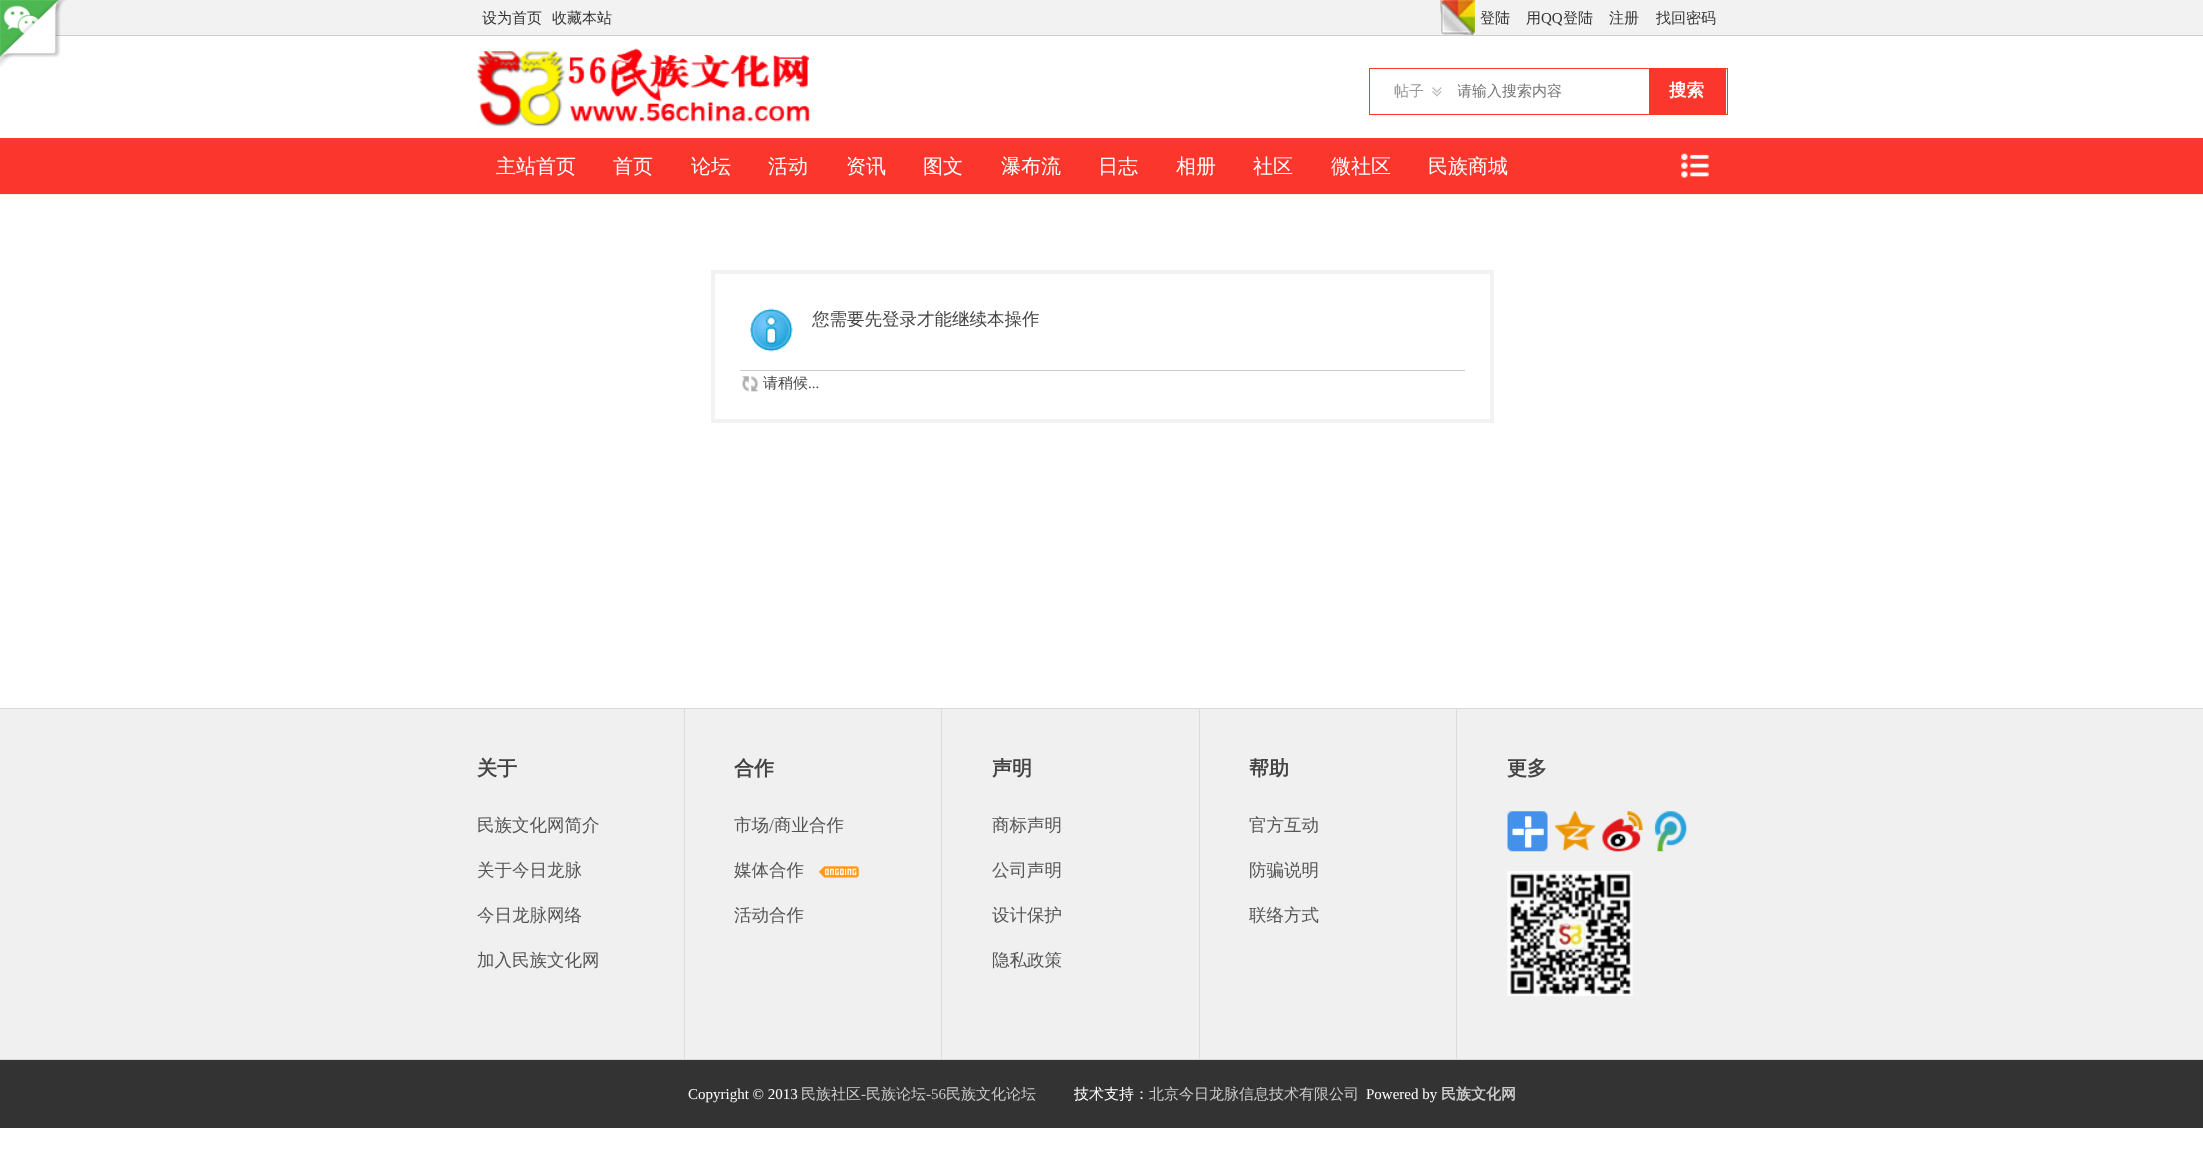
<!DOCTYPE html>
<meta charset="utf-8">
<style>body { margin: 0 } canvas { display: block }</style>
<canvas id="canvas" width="2203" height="1158"></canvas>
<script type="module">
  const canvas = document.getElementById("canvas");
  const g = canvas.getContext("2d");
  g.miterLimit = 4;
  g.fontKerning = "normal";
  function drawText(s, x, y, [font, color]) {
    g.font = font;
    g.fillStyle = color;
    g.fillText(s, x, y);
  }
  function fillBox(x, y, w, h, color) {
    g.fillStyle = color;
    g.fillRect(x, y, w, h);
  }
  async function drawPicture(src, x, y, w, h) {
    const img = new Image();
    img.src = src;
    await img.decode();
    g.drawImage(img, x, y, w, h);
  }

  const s1 = ["500 15px WenQuanYi Zen Hei", "#333333"];
  const s2 = ["15px Liberation Serif", "#333333"];
  const s3 = ["500 15px WenQuanYi Zen Hei", "#999999"];
  const s4 = ["500 15px WenQuanYi Zen Hei", "#757575"];
  const s5 = ["bold 17.5px WenQuanYi Zen Hei", "#FFFFFF"];
  const s6 = ["500 20px WenQuanYi Zen Hei", "#FFFFFF"];
  const s7 = ["500 17.5px WenQuanYi Zen Hei", "#444444"];
  const s8 = ["500 15px WenQuanYi Zen Hei", "#444444"];
  const s9 = ["15px Liberation Serif", "#444444"];
  const s10 = ["bold 20px WenQuanYi Zen Hei", "#444444"];
  const s11 = ["500 17.5px WenQuanYi Zen Hei", "#555555"];
  const s12 = ["17.5px Liberation Serif", "#555555"];
  const s13 = ["15px Liberation Serif", "#FFFFFF"];
  const s14 = ["500 15px WenQuanYi Zen Hei", "#CCCCCC"];
  const s15 = ["15px Liberation Serif", "#CCCCCC"];
  const s16 = ["500 15px WenQuanYi Zen Hei", "#FFFFFF"];
  const s17 = ["bold 15px WenQuanYi Zen Hei", "#CCCCCC"];

  fillBox(0, 0, 2203, 1158, "#FFFFFF");
  fillBox(0, 0, 2203, 35, "#F2F2F2");
  fillBox(0, 35, 2203, 1, "#CDCDCD");
  await drawPicture("pic1.png", 0, 0, 67, 67);
  drawText("设为首页", 482, 23, s1);
  drawText("收藏本站", 552, 23, s1);
  await drawPicture("pic2.png", 1440, 0, 35, 35);
  drawText("登陆", 1480, 23, s1);
  drawText("用", 1526, 23, s1);
  drawText("QQ", 1541, 23, s2);
  drawText("登陆", 1563, 23, s1);
  drawText("注册", 1609, 23, s1);
  drawText("找回密码", 1656, 23, s1);
  await drawPicture("pic3.png", 477, 48, 338, 79);
  g.strokeStyle = "#FB362C";
  g.strokeRect(1369.5, 68.5, 358, 46);
  await drawPicture("pic4.png", 1432, 87, 10, 10);
  drawText("帖子", 1394, 96, s3);
  g.save();
  g.beginPath();
  g.rect(1458, 81, 187, 22);
  g.clip();
  drawText("请输入搜索内容", 1457, 96, s4);
  g.restore();
  fillBox(1649, 69, 77, 45, "#FB362C");
  drawText("搜索", 1669, 96, s5);
  fillBox(0, 138, 2203, 56, "#FB362C");
  fillBox(0, 194, 2203, 1, "#F3F3F3");
  drawText("主站首页", 496, 173, s6);
  drawText("首页", 613, 173, s6);
  drawText("论坛", 691, 173, s6);
  drawText("活动", 768, 173, s6);
  drawText("资讯", 846, 173, s6);
  drawText("图文", 923, 173, s6);
  drawText("瀑布流", 1001, 173, s6);
  drawText("日志", 1098, 173, s6);
  drawText("相册", 1176, 173, s6);
  drawText("社区", 1253, 173, s6);
  drawText("微社区", 1331, 173, s6);
  drawText("民族商城", 1428, 173, s6);
  await drawPicture("pic5.png", 1681, 153, 28, 25);
  g.strokeStyle = "#F2F2F2";
  g.lineWidth = 4;
  g.strokeRect(713, 272, 779, 149);
  await drawPicture("pic6.png", 750, 308, 43, 44);
  drawText("您需要先登录才能继续本操作", 812, 325, s7);
  fillBox(740, 370, 725, 1, "#CDCDCD");
  await drawPicture("pic7.png", 742, 376, 16, 16);
  drawText("请稍候", 763, 388, s8);
  drawText("...", 808, 388, s9);
  fillBox(0, 709, 2203, 350, "#F0F0F0");
  fillBox(0, 708, 2203, 1, "#D9D9D9");
  fillBox(0, 1059, 2203, 1, "#D9D9D9");
  fillBox(684, 709, 1, 350, "#DBDBDB");
  drawText("关于", 477, 775, s10);
  drawText("民族文化网简介", 477, 831, s11);
  drawText("关于今日龙脉", 477, 876, s11);
  drawText("今日龙脉网络", 477, 921, s11);
  drawText("加入民族文化网", 477, 966, s11);
  fillBox(941, 709, 1, 350, "#DBDBDB");
  drawText("合作", 734, 775, s10);
  drawText("市场", 734, 831, s11);
  drawText("/", 769, 831, s12);
  drawText("商业合作", 774, 831, s11);
  await drawPicture("pic8.png", 818, 866, 41, 12);
  drawText("媒体合作", 734, 876, s11);
  drawText("活动合作", 734, 921, s11);
  fillBox(1199, 709, 1, 350, "#DBDBDB");
  drawText("声明", 992, 775, s10);
  drawText("商标声明", 992, 831, s11);
  drawText("公司声明", 992, 876, s11);
  drawText("设计保护", 992, 921, s11);
  drawText("隐私政策", 992, 966, s11);
  fillBox(1456, 709, 1, 350, "#DBDBDB");
  drawText("帮助", 1249, 775, s10);
  drawText("官方互动", 1249, 831, s11);
  drawText("防骗说明", 1249, 876, s11);
  drawText("联络方式", 1249, 921, s11);
  drawText("更多", 1507, 775, s10);
  await drawPicture("pic9.png", 1507, 811, 41, 41);
  await drawPicture("pic10.png", 1555, 811, 40, 40);
  await drawPicture("pic11.png", 1602, 811, 41, 41);
  await drawPicture("pic12.png", 1654, 811, 33, 41);
  await drawPicture("pic13.png", 1507, 871, 126, 125);
  fillBox(0, 1060, 2203, 68, "#333333");
  drawText("Copyright © 2013", 688, 1099, s13);
  drawText("民族社区", 801, 1099, s14);
  drawText("-", 861, 1099, s15);
  drawText("民族论坛", 866, 1099, s14);
  drawText("-56", 926, 1099, s15);
  drawText("民族文化论坛", 946, 1099, s14);
  drawText("技术支持：", 1074, 1099, s16);
  drawText("北京今日龙脉信息技术有限公司", 1149, 1099, s14);
  drawText("Powered by", 1366, 1099, s13);
  drawText("民族文化网", 1441, 1099, s17);
</script>
